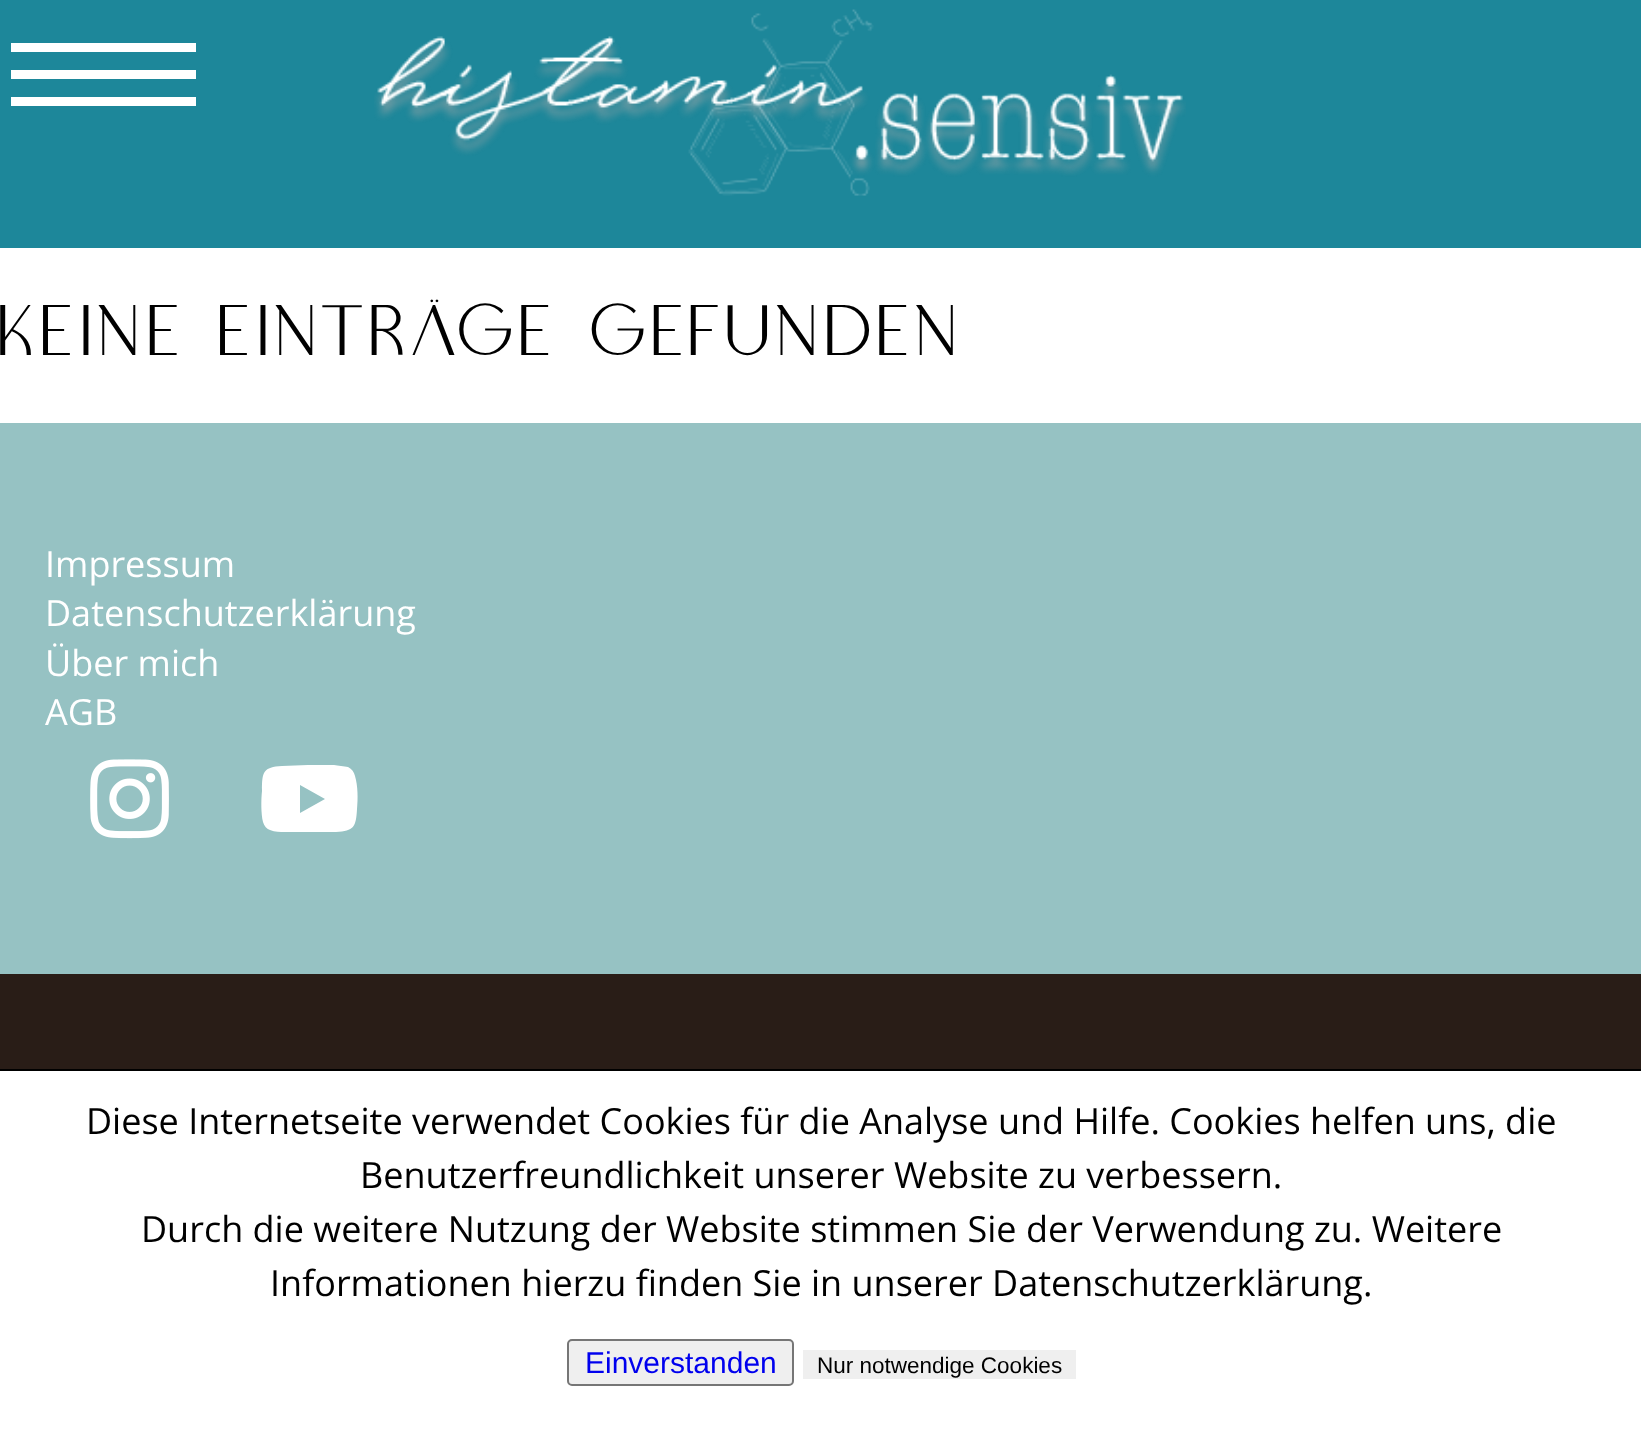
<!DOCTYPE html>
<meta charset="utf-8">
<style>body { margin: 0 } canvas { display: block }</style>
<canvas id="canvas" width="1641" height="1442"></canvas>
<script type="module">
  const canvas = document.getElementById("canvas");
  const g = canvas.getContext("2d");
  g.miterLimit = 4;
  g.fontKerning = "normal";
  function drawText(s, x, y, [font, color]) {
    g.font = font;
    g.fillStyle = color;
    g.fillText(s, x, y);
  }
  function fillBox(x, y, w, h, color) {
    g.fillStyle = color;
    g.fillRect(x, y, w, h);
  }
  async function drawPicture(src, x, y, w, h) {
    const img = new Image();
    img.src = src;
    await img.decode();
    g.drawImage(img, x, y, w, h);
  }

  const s1 = ["72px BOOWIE", "#000000"];
  const s2 = ["36px Open Sans", "#FFFFFF"];
  const s3 = ["36px Open Sans", "#000000"];
  const s4 = ["30px Liberation Sans", "#0000EE"];
  const s5 = ["22.5px Liberation Sans", "#000000"];

  fillBox(0, 0, 1641, 1442, "#FFFFFF");
  fillBox(0, 0, 1641, 248, "#1D879A");
  fillBox(11, 43, 185, 9, "#FFFFFF");
  fillBox(11, 70, 185, 9, "#FFFFFF");
  fillBox(11, 97, 185, 9, "#FFFFFF");
  await drawPicture("pic1.png", 374, 9, 812, 187);
  g.letterSpacing = "4.5px";
  drawText("Keine Einträge gefunden", 0, 355, s1);
  fillBox(0, 423, 1641, 551, "#96C2C3");
  g.letterSpacing = "0px";
  drawText("Impressum", 45, 577, s2);
  drawText("Datenschutzerklärung", 45, 626, s2);
  drawText("Über mich", 45, 676, s2);
  drawText("AGB", 45, 725, s2);
  await drawPicture("pic2.png", 90, 759, 79, 80);
  g.beginPath();
  g.moveTo(355, 776);
  g.bezierCurveTo(358, 786, 358, 799, 357, 809);
  g.bezierCurveTo(356, 827, 354, 831, 336, 832);
  g.lineTo(312, 832);
  g.lineTo(285, 832);
  g.bezierCurveTo(280, 832, 275, 832, 270, 830);
  g.bezierCurveTo(267, 829, 264, 826, 263, 822);
  g.bezierCurveTo(261, 814, 261, 800, 262, 791);
  g.bezierCurveTo(262, 772, 263, 767, 282, 766);
  g.lineTo(308, 765);
  g.lineTo(334, 765);
  g.bezierCurveTo(338, 766, 344, 766, 348, 767);
  g.bezierCurveTo(352, 769, 354, 772, 355, 776);
  g.closePath();
  g.moveTo(300, 813);
  g.lineTo(325, 799);
  g.lineTo(300, 785);
  g.closePath();
  g.fill();
  fillBox(0, 974, 1641, 95, "#291D17");
  fillBox(0, 1069, 1641, 2, "#000000");
  drawText("Diese Internetseite verwendet Cookies für die Analyse und Hilfe. Cookies helfen uns, die", 86, 1134, s3);
  drawText("Benutzerfreundlichkeit unserer Website zu verbessern.", 360, 1188, s3);
  drawText("Durch die weitere Nutzung der Website stimmen Sie der Verwendung zu. Weitere", 141, 1242, s3);
  drawText("Informationen hierzu finden Sie in unserer Datenschutzerklärung.", 270, 1296, s3);
  g.fillStyle = "#EFEFEF";
  g.beginPath();
  g.roundRect(568, 1340, 225, 45, 4);
  g.fill();
  g.strokeStyle = "#767676";
  g.lineWidth = 2;
  g.stroke();
  drawText("Einverstanden", 585, 1373, s4);
  fillBox(803, 1350, 273, 29, "#EFEFEF");
  drawText("Nur notwendige Cookies", 817, 1373, s5);
</script>
